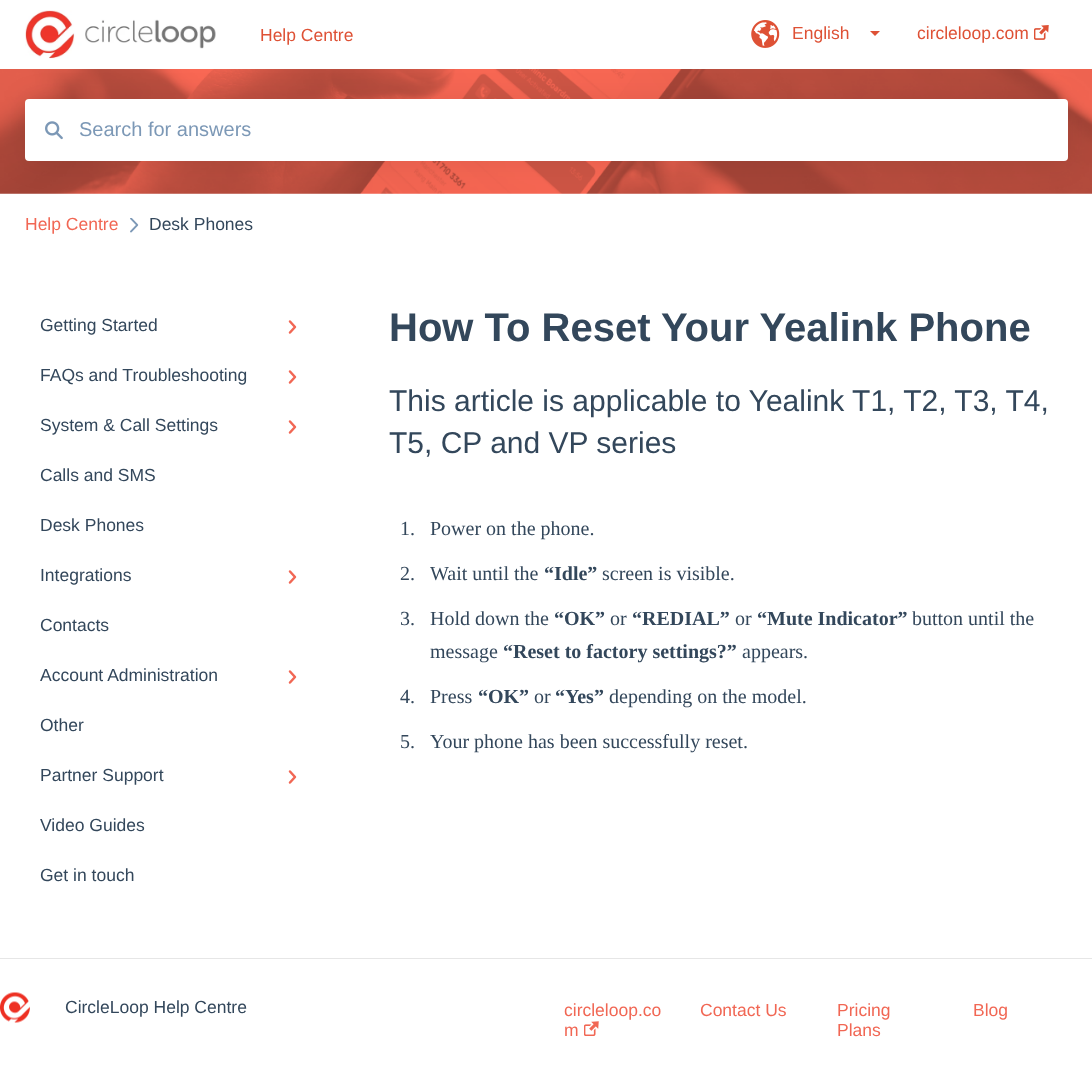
<!DOCTYPE html>
<meta charset="utf-8">
<style>body { margin: 0 } canvas { display: block }</style>
<canvas id="canvas" width="1092" height="1067"></canvas>
<script type="module">
  const canvas = document.getElementById("canvas");
  const g = canvas.getContext("2d");
  g.miterLimit = 4;
  g.fontKerning = "normal";
  function drawText(s, x, y, [font, color]) {
    g.font = font;
    g.fillStyle = color;
    g.fillText(s, x, y);
  }
  function fillBox(x, y, w, h, color) {
    g.fillStyle = color;
    g.fillRect(x, y, w, h);
  }
  function fillRounded(x, y, w, h, r, color) {
    g.fillStyle = color;
    g.beginPath();
    g.roundRect(x, y, w, h, r);
    g.fill();
  }
  async function drawPicture(src, x, y, w, h) {
    const img = new Image();
    img.src = src;
    await img.decode();
    g.drawImage(img, x, y, w, h);
  }

  const s1 = ["17.5px Liberation Sans", "#DE5135"];
  const s2 = ["20px Liberation Sans", "#7C98B6"];
  const s3 = ["17.5px Liberation Sans", "#F16754"];
  const s4 = ["17.5px Liberation Sans", "#33475B"];
  const s5 = ["bold 40px Liberation Sans", "#33475B"];
  const s6 = ["30px Liberation Sans", "#33475B"];
  const s7 = ["20px Liberation Serif", "#33475B"];
  const s8 = ["bold 20px Liberation Serif", "#33475B"];

  fillBox(0, 0, 1092, 1067, "#FFFFFF");
  await drawPicture("pic4.png", 0, 69, 1092, 125);
  g.fillStyle = "rgba(0, 0, 0, 0.08)";
  g.filter = "blur(15px)";
  g.beginPath();
  g.roundRect(25, 100, 1043, 63, 4);
  g.fill();
  g.filter = "none";
  await drawPicture("pic1.png", 25, 10, 191, 49);
  drawText("Help Centre", 260, 41, s1);
  await drawPicture("pic2.png", 751, 20, 29, 28);
  drawText("English", 792, 39, s1);
  g.beginPath();
  g.moveTo(870, 31);
  g.lineTo(880, 31);
  g.lineTo(875, 36);
  g.closePath();
  g.fill();
  drawText("circleloop.com", 917, 39, s1);
  await drawPicture("pic3.png", 1034, 25, 15, 15);
  fillRounded(25, 99, 1043, 62, 4, "#FFFFFF");
  await drawPicture("pic5.png", 45, 121, 18, 19);
  drawText("Search for answers", 79, 136, s2);
  drawText("Help Centre", 25, 230, s3);
  await drawPicture("pic6.png", 130, 218, 9, 15);
  drawText("Desk Phones", 149, 230, s4);
  drawText("Getting Started", 40, 331, s4);
  g.beginPath();
  g.moveTo(290, 321.5);
  g.lineTo(295, 327);
  g.lineTo(290, 332.5);
  g.strokeStyle = "#F16754";
  g.lineWidth = 2.5;
  g.lineCap = "round";
  g.lineJoin = "round";
  g.stroke();
  drawText("FAQs and Troubleshooting", 40, 381, s4);
  g.beginPath();
  g.moveTo(290, 371.5);
  g.lineTo(295, 377);
  g.lineTo(290, 382.5);
  g.stroke();
  drawText("System & Call Settings", 40, 431, s4);
  g.beginPath();
  g.moveTo(290, 421.5);
  g.lineTo(295, 427);
  g.lineTo(290, 432.5);
  g.stroke();
  drawText("Calls and SMS", 40, 481, s4);
  drawText("Desk Phones", 40, 531, s4);
  drawText("Integrations", 40, 581, s4);
  g.beginPath();
  g.moveTo(290, 571.5);
  g.lineTo(295, 577);
  g.lineTo(290, 582.5);
  g.stroke();
  drawText("Contacts", 40, 631, s4);
  drawText("Account Administration", 40, 681, s4);
  g.beginPath();
  g.moveTo(290, 671.5);
  g.lineTo(295, 677);
  g.lineTo(290, 682.5);
  g.stroke();
  drawText("Other", 40, 731, s4);
  drawText("Partner Support", 40, 781, s4);
  g.beginPath();
  g.moveTo(290, 771.5);
  g.lineTo(295, 777);
  g.lineTo(290, 782.5);
  g.stroke();
  drawText("Video Guides", 40, 831, s4);
  drawText("Get in touch", 40, 881, s4);
  drawText("How To Reset Your Yealink Phone", 389, 341, s5);
  drawText("This article is applicable to Yealink T1, T2, T3, T4,", 389, 411, s6);
  drawText("T5, CP and VP series", 389, 453, s6);
  drawText("1.", 400, 535, s7);
  drawText("Power on the phone.", 430, 535, s7);
  drawText("2.", 400, 580, s7);
  drawText("Wait until the", 430, 580, s7);
  drawText("“Idle”", 544, 580, s8);
  drawText("screen is visible.", 602, 580, s7);
  drawText("3.", 400, 625, s7);
  drawText("Hold down the", 430, 625, s7);
  drawText("“OK”", 554, 625, s8);
  drawText("or", 610, 625, s7);
  drawText("“REDIAL”", 632, 625, s8);
  drawText("or", 735, 625, s7);
  drawText("“Mute Indicator”", 757, 625, s8);
  drawText("button until the", 912, 625, s7);
  drawText("message", 430, 658, s7);
  drawText("“Reset to factory settings?”", 503, 658, s8);
  drawText("appears.", 742, 658, s7);
  drawText("4.", 400, 703, s7);
  drawText("Press", 430, 703, s7);
  drawText("“OK”", 478, 703, s8);
  drawText("or", 534, 703, s7);
  drawText("“Yes”", 555, 703, s8);
  drawText("depending on the model.", 609, 703, s7);
  drawText("5.", 400, 748, s7);
  drawText("Your phone has been successfully reset.", 430, 748, s7);
  fillBox(0, 958, 1092, 1, "#E6E6E6");
  await drawPicture("pic7.png", 0, 992, 30, 31);
  drawText("CircleLoop Help Centre", 65, 1013, s4);
  drawText("circleloop.co", 564, 1016, s3);
  drawText("m", 564, 1036, s3);
  await drawPicture("pic8.png", 584, 1021, 15, 15);
  drawText("Contact Us", 700, 1016, s3);
  drawText("Pricing", 837, 1016, s3);
  drawText("Plans", 837, 1036, s3);
  drawText("Blog", 973, 1016, s3);
</script>
